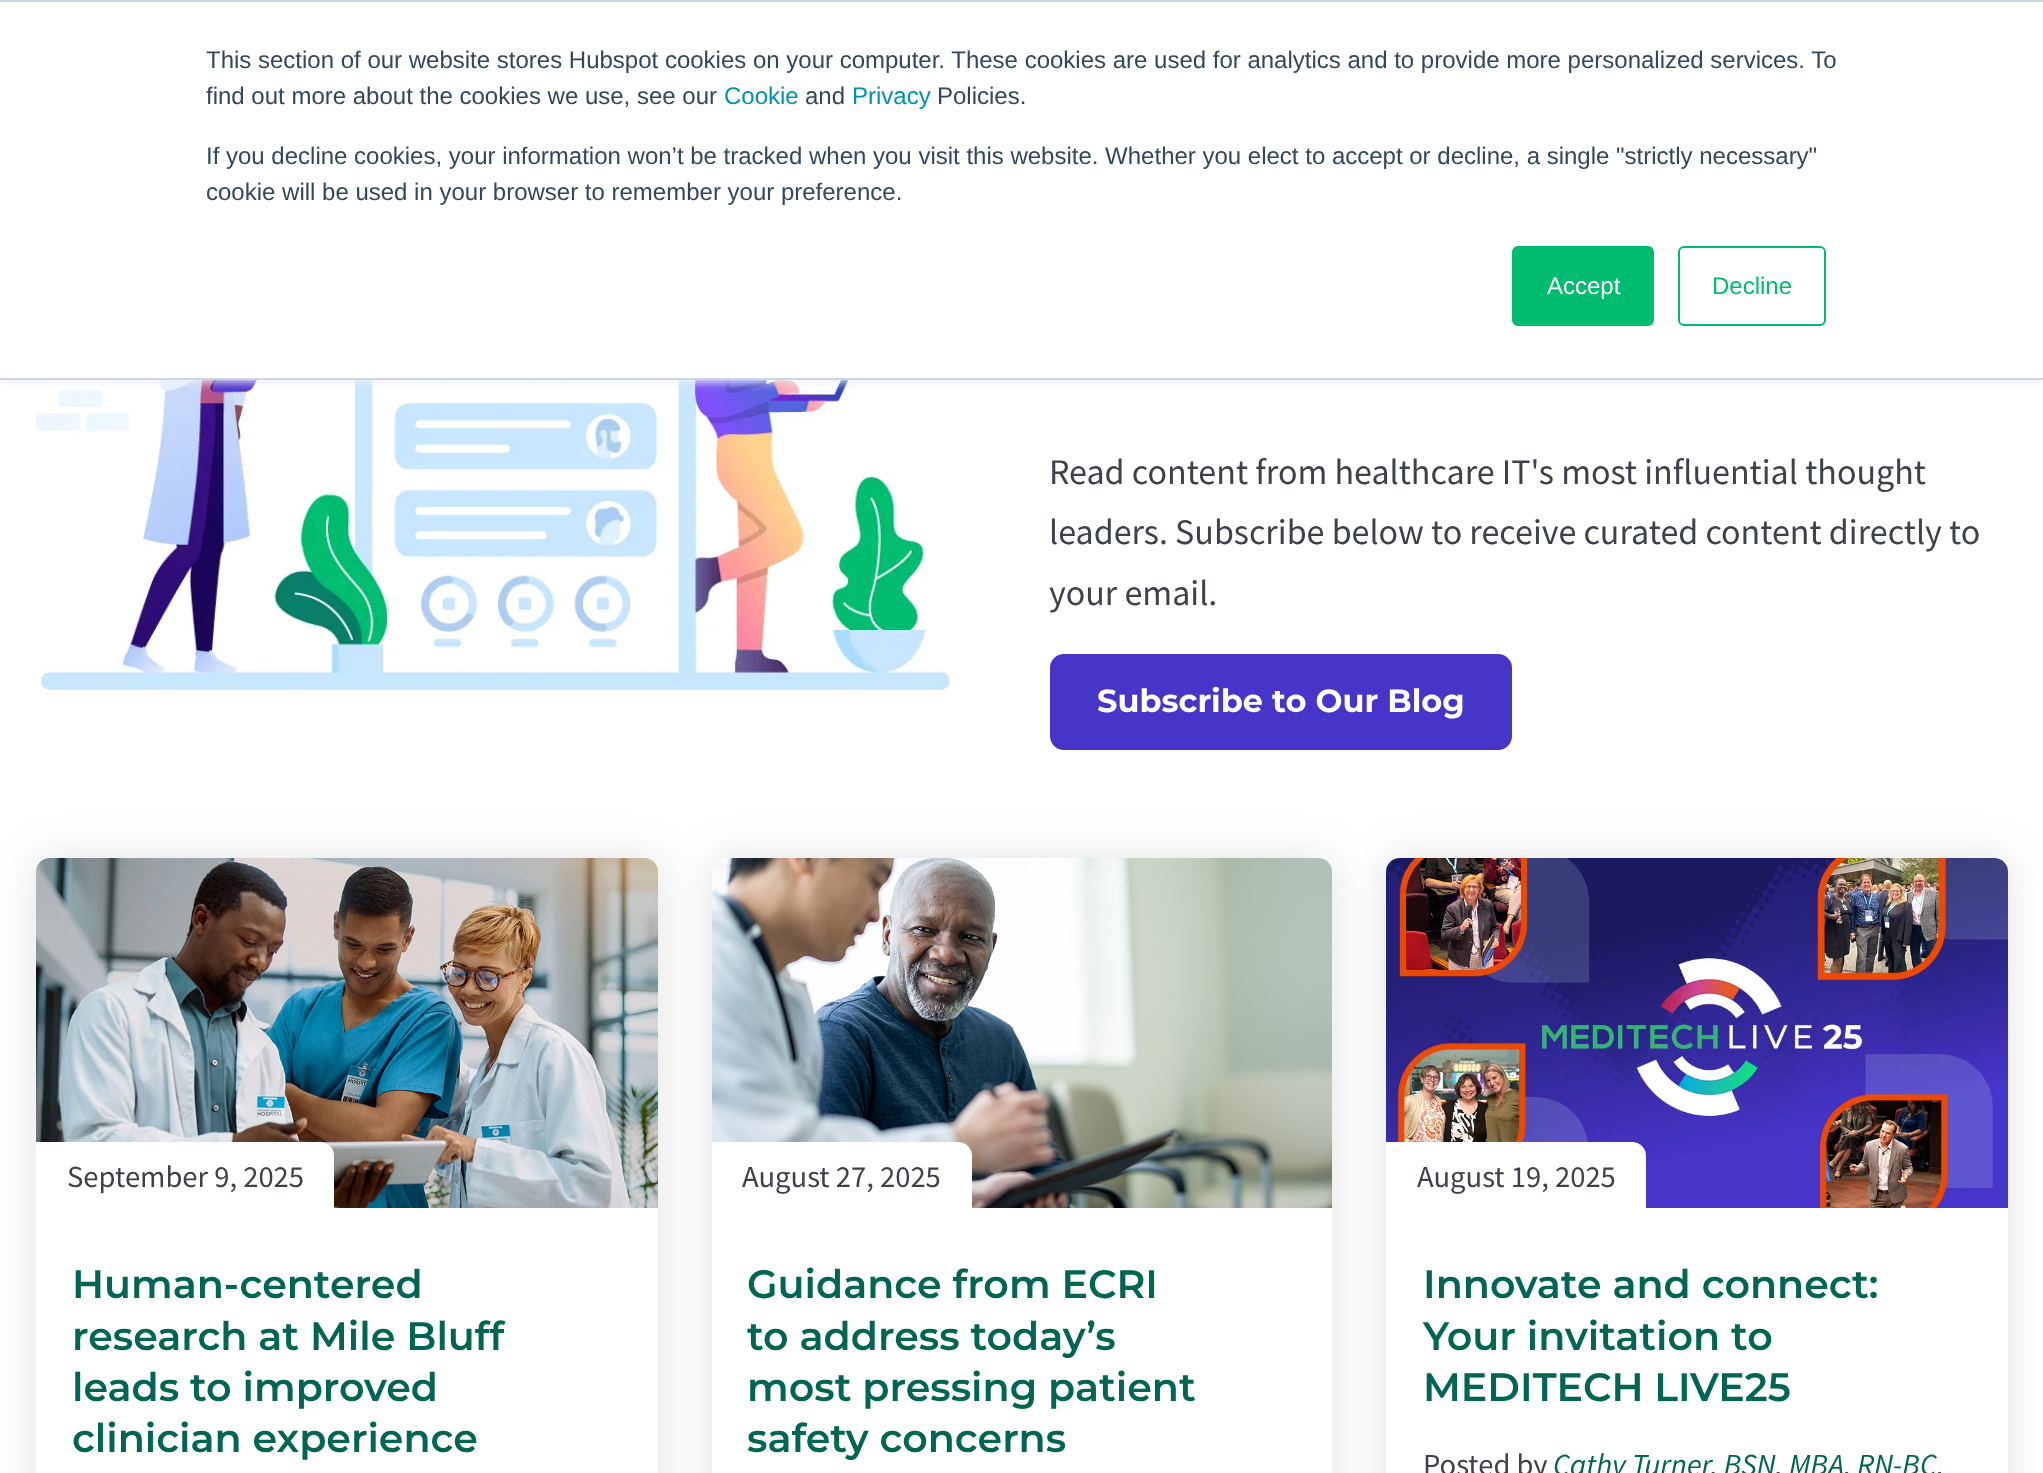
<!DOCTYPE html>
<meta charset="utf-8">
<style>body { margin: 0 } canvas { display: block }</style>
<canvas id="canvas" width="2043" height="1473"></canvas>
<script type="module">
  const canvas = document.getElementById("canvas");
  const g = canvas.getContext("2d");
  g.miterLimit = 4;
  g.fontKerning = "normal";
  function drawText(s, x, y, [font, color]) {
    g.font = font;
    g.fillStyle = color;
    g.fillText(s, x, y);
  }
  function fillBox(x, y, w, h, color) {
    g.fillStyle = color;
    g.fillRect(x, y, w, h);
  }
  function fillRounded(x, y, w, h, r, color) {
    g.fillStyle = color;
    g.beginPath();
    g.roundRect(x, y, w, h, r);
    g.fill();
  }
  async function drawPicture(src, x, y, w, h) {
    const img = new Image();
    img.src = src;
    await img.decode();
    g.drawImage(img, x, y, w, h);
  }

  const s1 = ["24px Liberation Sans", "#33475B"];
  const s2 = ["24px Liberation Sans", "#0091AE"];
  const s3 = ["24px Liberation Sans", "#FFFFFF"];
  const s4 = ["24px Liberation Sans", "#00BC6F"];
  const s5 = ["36px Source Sans Pro", "#3D4249"];
  const s6 = ["bold 32px Montserrat", "#FFFFFF"];
  const s7 = ["30.6px Source Sans Pro", "#3D4249"];
  const s8 = ["600 39.6px Montserrat", "#006552"];
  const s9 = ["italic 30.6px Source Sans Pro", "#006552"];

  fillBox(0, 0, 2043, 1473, "#FFFFFF");
  await drawPicture("pic1.png", 36, 380, 922, 310);
  g.fillStyle = "#EAF0F6";
  g.filter = "blur(5px)";
  g.beginPath();
  g.rect(0, 2, 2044, 380);
  g.fill();
  g.filter = "none";
  fillBox(0, 2, 2043, 376, "#FFFFFF");
  fillBox(0, 0, 2043, 2, "#CBD6E2");
  fillBox(0, 378, 2043, 2, "#CBD6E2");
  drawText("This section of our website stores Hubspot cookies on your computer. These cookies are used for analytics and to provide more personalized services. To", 206, 68, s1);
  drawText("find out more about the cookies we use, see our", 206, 104, s1);
  drawText("Cookie", 724, 104, s2);
  drawText("and", 805, 104, s1);
  drawText("Privacy", 852, 104, s2);
  drawText("Policies.", 937, 104, s1);
  drawText("If you decline cookies, your information won’t be tracked when you visit this website. Whether you elect to accept or decline, a single \"strictly necessary\"", 206, 164, s1);
  drawText("cookie will be used in your browser to remember your preference.", 206, 200, s1);
  g.fillStyle = "#00BC6F";
  g.beginPath();
  g.roundRect(1513, 247, 140, 78, 5);
  g.fill();
  g.strokeStyle = "#00BC6F";
  g.lineWidth = 2;
  g.stroke();
  drawText("Accept", 1547, 294, s3);
  g.beginPath();
  g.roundRect(1679, 247, 146, 78, 5);
  g.stroke();
  drawText("Decline", 1712, 294, s4);
  drawText("Read content from healthcare IT's most influential thought", 1049, 484, s5);
  drawText("leaders. Subscribe below to receive curated content directly to", 1049, 544, s5);
  drawText("your email.", 1049, 605, s5);
  g.fillStyle = "#4734C8";
  g.beginPath();
  g.roundRect(1053, 657, 456, 90, 11);
  g.fill();
  g.strokeStyle = "#4734C8";
  g.lineWidth = 6;
  g.stroke();
  drawText("Subscribe to Our Blog", 1097, 712, s6);
  g.fillStyle = "rgba(120, 120, 120, 0.2)";
  g.filter = "blur(20px)";
  g.beginPath();
  g.roundRect(34, 856, 626, 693, 16);
  g.fill();
  g.filter = "none";
  fillRounded(36, 858, 622, 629, 14, "#FFFFFF");
  g.fillStyle = "rgba(120, 120, 120, 0.2)";
  g.filter = "blur(20px)";
  g.beginPath();
  g.roundRect(710, 856, 624, 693, 16);
  g.fill();
  g.filter = "none";
  await drawPicture("pic2.png", 36, 858, 622, 350);
  g.fillStyle = "#FFFFFF";
  g.beginPath();
  g.roundRect(36, 1142, 298, 68, [0, 14, 0, 0]);
  g.fill();
  drawText("September 9, 2025", 67, 1187, s7);
  drawText("Human-centered", 72, 1298, s8);
  drawText("research at Mile Bluff", 72, 1350, s8);
  drawText("leads to improved", 72, 1401, s8);
  drawText("clinician experience", 72, 1452, s8);
  fillRounded(712, 858, 620, 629, 14, "#FFFFFF");
  g.fillStyle = "rgba(120, 120, 120, 0.2)";
  g.filter = "blur(20px)";
  g.beginPath();
  g.roundRect(1384, 856, 626, 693, 16);
  g.fill();
  g.filter = "none";
  await drawPicture("pic3.png", 712, 858, 620, 350);
  g.fillStyle = "#FFFFFF";
  g.beginPath();
  g.roundRect(712, 1142, 260, 68, [0, 14, 0, 0]);
  g.fill();
  drawText("August 27, 2025", 742, 1187, s7);
  drawText("Guidance from ECRI", 747, 1298, s8);
  drawText("to address today’s", 747, 1350, s8);
  drawText("most pressing patient", 747, 1401, s8);
  drawText("safety concerns", 747, 1452, s8);
  fillRounded(1386, 858, 622, 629, 14, "#FFFFFF");
  await drawPicture("pic4.png", 1386, 858, 622, 350);
  g.beginPath();
  g.roundRect(1386, 1142, 260, 68, [0, 14, 0, 0]);
  g.fill();
  drawText("August 19, 2025", 1417, 1187, s7);
  drawText("Innovate and connect:", 1423, 1298, s8);
  drawText("Your invitation to", 1423, 1350, s8);
  drawText("MEDITECH LIVE25", 1423, 1401, s8);
  drawText("Posted by", 1423, 1475, s7);
  drawText("Cathy Turner, BSN, MBA, RN-BC,", 1553, 1475, s9);
</script>
